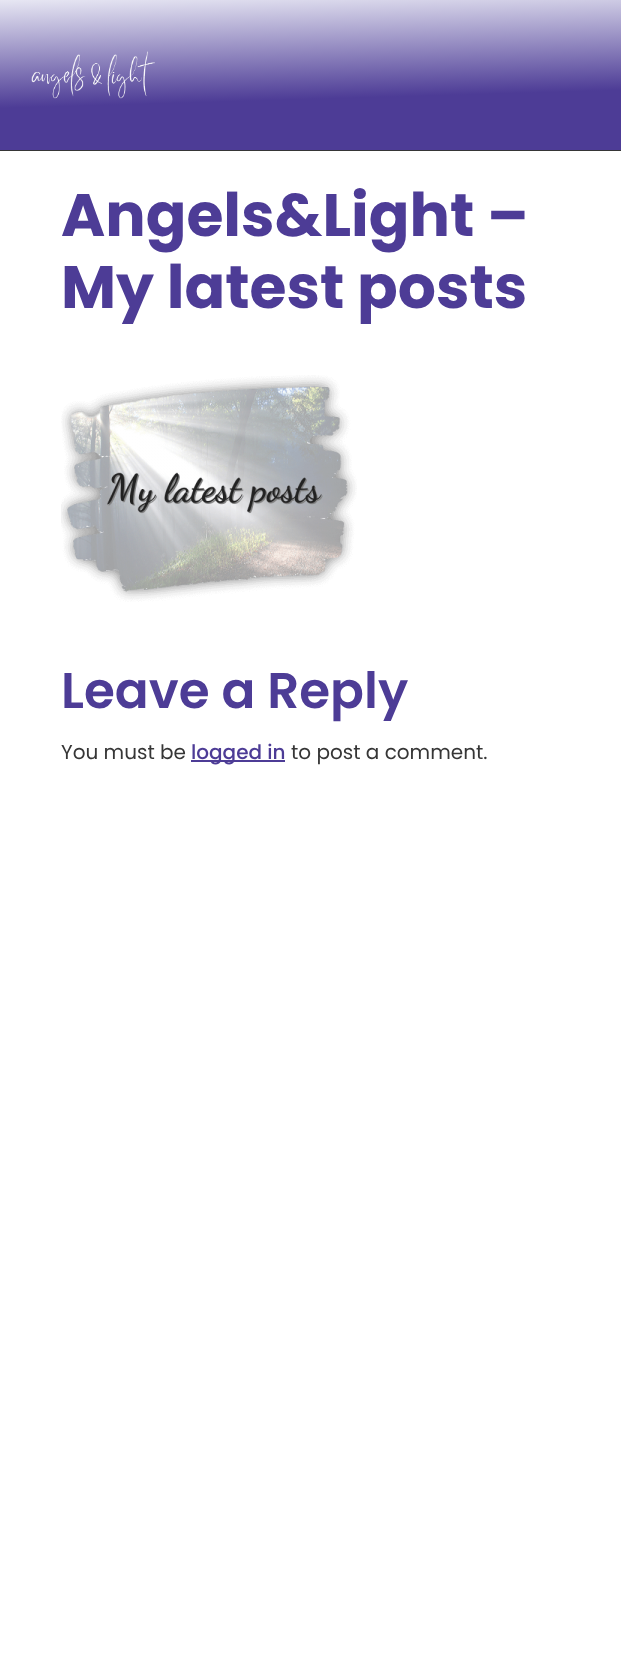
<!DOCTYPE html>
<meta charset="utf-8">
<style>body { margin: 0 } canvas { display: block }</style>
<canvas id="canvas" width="621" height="1657"></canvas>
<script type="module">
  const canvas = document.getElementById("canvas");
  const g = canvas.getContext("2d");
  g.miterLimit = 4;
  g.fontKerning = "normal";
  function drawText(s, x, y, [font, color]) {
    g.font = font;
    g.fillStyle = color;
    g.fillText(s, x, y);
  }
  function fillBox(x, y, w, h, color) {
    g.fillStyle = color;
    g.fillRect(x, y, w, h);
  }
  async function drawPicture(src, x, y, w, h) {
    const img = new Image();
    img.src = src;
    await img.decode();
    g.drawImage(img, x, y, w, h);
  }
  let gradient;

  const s1 = ["bold 60px Poppins", "#4D3C96"];
  const s2 = ["600 50px Poppins", "#4D3C96"];
  const s3 = ["20px Poppins", "#363636"];
  const s4 = ["500 20px Poppins", "#4D3C96"];

  fillBox(0, 0, 621, 1657, "#FFFFFF");
  gradient = g.createLinearGradient(313, 161, 308, -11);
  gradient.addColorStop(0.36, "#4D3C96");
  gradient.addColorStop(1, "#EAEAF5");
  g.fillStyle = gradient;
  g.fillRect(0, 0, 621, 150);
  fillBox(0, 150, 621, 1, "#363636");
  await drawPicture("pic1.png", 31, 51, 124, 48);
  drawText("Angels&Light –", 61, 236, s1);
  drawText("My latest posts", 61, 308, s1);
  await drawPicture("pic2.png", 61, 375, 296, 227);
  drawText("Leave a Reply", 61, 708, s2);
  drawText("You must be", 61, 759, s3);
  fillBox(191, 760, 94, 2, "#4D3C96");
  drawText("logged in", 191, 759, s4);
  drawText("to post a comment.", 291, 759, s3);
</script>
